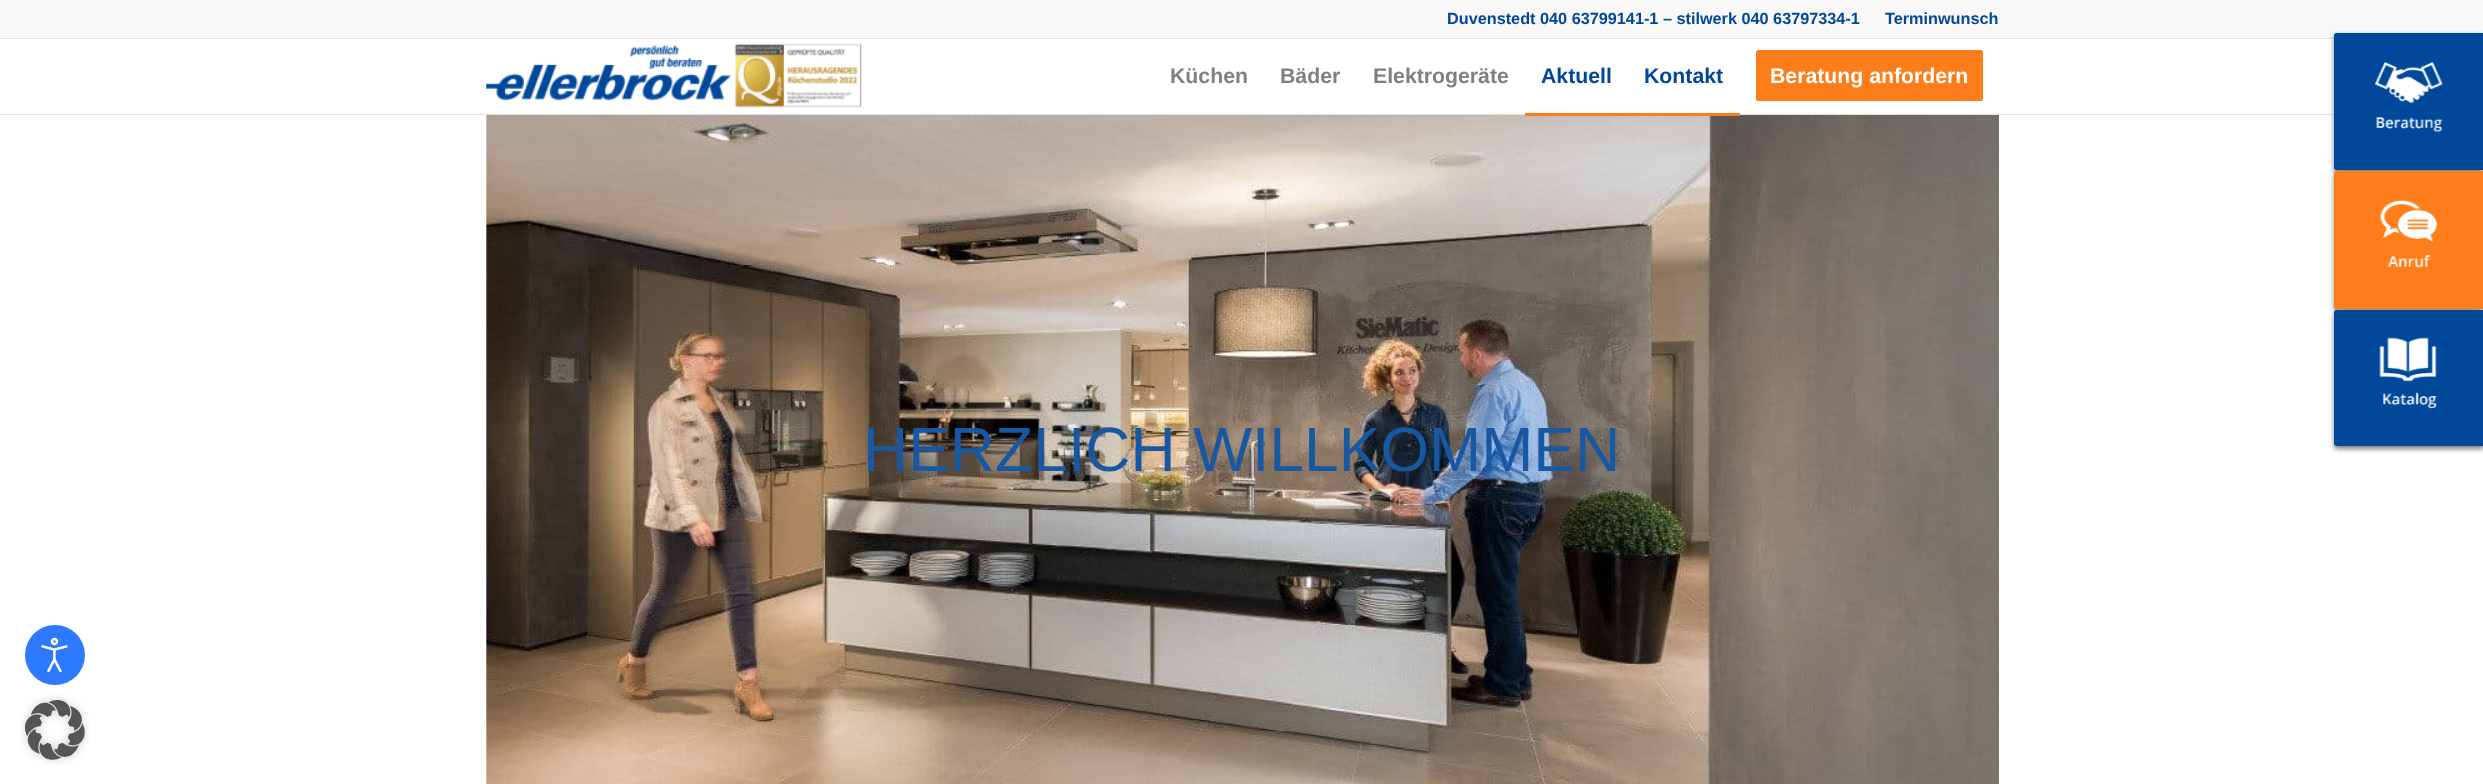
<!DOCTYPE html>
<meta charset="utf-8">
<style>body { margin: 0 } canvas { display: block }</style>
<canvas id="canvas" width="2483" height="784"></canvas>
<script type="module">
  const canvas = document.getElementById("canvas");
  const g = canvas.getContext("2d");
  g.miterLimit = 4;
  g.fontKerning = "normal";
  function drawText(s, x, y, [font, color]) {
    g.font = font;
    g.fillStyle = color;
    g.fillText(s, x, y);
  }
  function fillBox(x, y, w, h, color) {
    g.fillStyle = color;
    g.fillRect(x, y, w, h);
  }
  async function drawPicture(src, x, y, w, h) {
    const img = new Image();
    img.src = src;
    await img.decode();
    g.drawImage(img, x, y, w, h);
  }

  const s1 = ["bold 16.25px Liberation Sans", "#004799"];
  const s2 = ["bold 21.25px Liberation Sans", "#808080"];
  const s3 = ["bold 21.25px Liberation Sans", "#004799"];
  const s4 = ["bold 21.25px Liberation Sans", "#FFFFFF"];
  const s5 = ["62.5px Liberation Sans", "#1858A2"];

  fillBox(0, 0, 2483, 784, "#FFFFFF");
  fillBox(0, 0, 2483, 38, "#F8F8F8");
  fillBox(0, 38, 2334, 1, "#E1E1E1");
  drawText("Duvenstedt 040 63799141-1 – stilwerk 040 63797334-1", 1447, 24, s1);
  drawText("Terminwunsch", 1885, 24, s1);
  await drawPicture("pic2.png", 486, 113, 1513, 671);
  fillBox(0, 114, 2334, 1, "#E1E1E1");
  await drawPicture("pic1.png", 486, 43, 376, 65);
  drawText("Küchen", 1170, 83, s2);
  drawText("Bäder", 1280, 83, s2);
  drawText("Elektrogeräte", 1373, 83, s2);
  drawText("Aktuell", 1541, 83, s3);
  fillBox(486, 113, 1513, 1, "rgba(255, 255, 255, 0.95)");
  fillBox(1525, 113, 215, 3, "#FE7D1B");
  drawText("Kontakt", 1644, 83, s3);
  g.fillStyle = "#FE7D1B";
  g.beginPath();
  g.roundRect(1757.5, 51.5, 224, 48, 1);
  g.fill();
  g.strokeStyle = "#FE7D1B";
  g.lineWidth = 3;
  g.stroke();
  drawText("Beratung anfordern", 1770, 83, s4);
  drawText("HERZLICH WILLKOMMEN", 863, 471, s5);
  g.fillStyle = "rgba(0, 0, 0, 0.5)";
  g.filter = "blur(2.5px)";
  g.beginPath();
  g.roundRect(2334, 35, 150, 138, 2.5);
  g.fill();
  g.filter = "none";
  g.fillStyle = "#00489A";
  g.beginPath();
  g.moveTo(2336.5, 33);
  g.lineTo(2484, 33);
  g.lineTo(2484, 170);
  g.lineTo(2336.5, 170);
  g.bezierCurveTo(2335, 170, 2334, 169, 2334, 167.5);
  g.lineTo(2334, 35.5);
  g.bezierCurveTo(2334, 34, 2335, 33, 2336.5, 33);
  g.closePath();
  g.fill();
  await drawPicture("pic3.png", 2375, 62, 68, 71);
  g.fillStyle = "rgba(0, 0, 0, 0.5)";
  g.filter = "blur(2.5px)";
  g.beginPath();
  g.roundRect(2334, 174, 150, 137, 2.5);
  g.fill();
  g.filter = "none";
  g.fillStyle = "#FD7D1A";
  g.beginPath();
  g.moveTo(2336.5, 171);
  g.lineTo(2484, 171);
  g.lineTo(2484, 309);
  g.lineTo(2336.5, 309);
  g.bezierCurveTo(2335, 309, 2334, 308, 2334, 306.5);
  g.lineTo(2334, 173.5);
  g.bezierCurveTo(2334, 172, 2335, 171, 2336.5, 171);
  g.closePath();
  g.fill();
  await drawPicture("pic4.png", 2380, 200, 58, 68);
  g.fillStyle = "rgba(0, 0, 0, 0.5)";
  g.filter = "blur(2.5px)";
  g.beginPath();
  g.roundRect(2334, 313, 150, 136, 2.5);
  g.fill();
  g.filter = "none";
  g.fillStyle = "#00489A";
  g.beginPath();
  g.moveTo(2336.5, 310);
  g.lineTo(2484, 310);
  g.lineTo(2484, 446);
  g.lineTo(2336.5, 446);
  g.bezierCurveTo(2335, 446, 2334, 445, 2334, 443.5);
  g.lineTo(2334, 312.5);
  g.bezierCurveTo(2334, 311, 2335, 310, 2336.5, 310);
  g.closePath();
  g.fill();
  await drawPicture("pic5.png", 2379, 337, 59, 72);
  g.fillStyle = "#2D79FF";
  g.beginPath();
  g.arc(55, 655, 30, 0, Math.PI * 2);
  g.fill();
  await drawPicture("pic6.png", 41, 637, 27, 36);
  await drawPicture("pic7.png", 20, 695, 70, 70);
</script>
